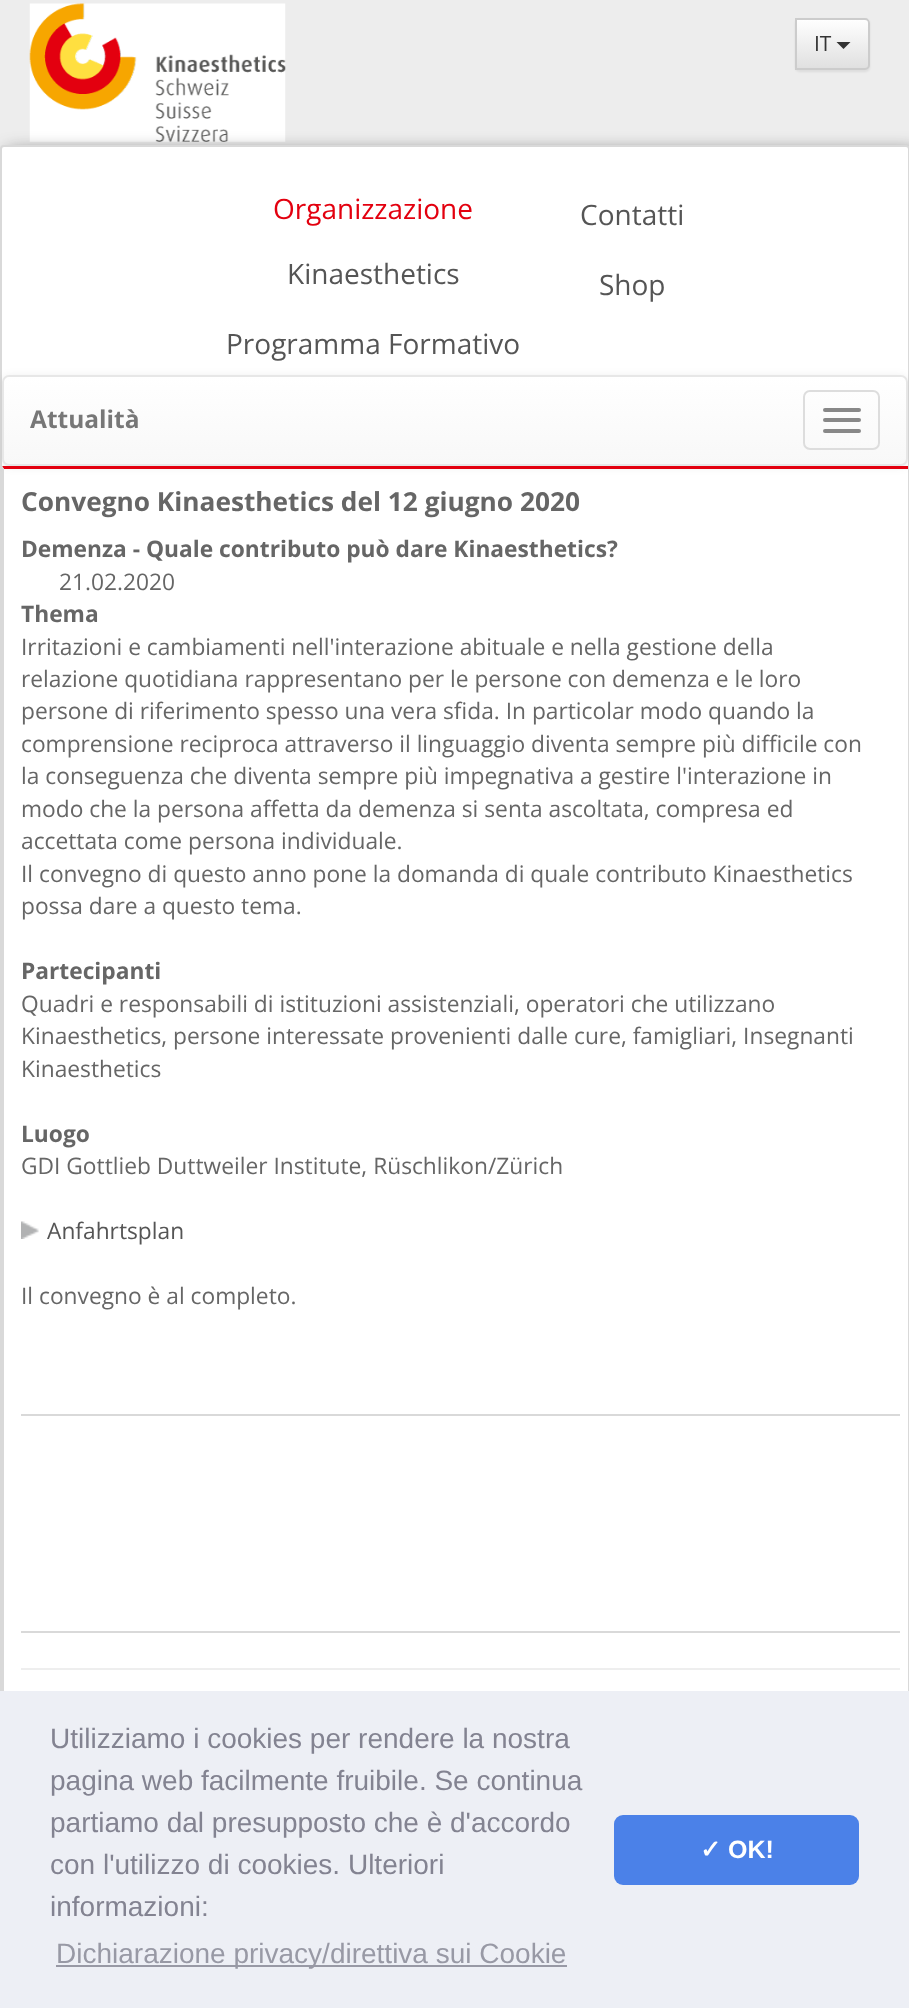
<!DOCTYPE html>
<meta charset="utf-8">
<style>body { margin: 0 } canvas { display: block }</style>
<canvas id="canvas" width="909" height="2008"></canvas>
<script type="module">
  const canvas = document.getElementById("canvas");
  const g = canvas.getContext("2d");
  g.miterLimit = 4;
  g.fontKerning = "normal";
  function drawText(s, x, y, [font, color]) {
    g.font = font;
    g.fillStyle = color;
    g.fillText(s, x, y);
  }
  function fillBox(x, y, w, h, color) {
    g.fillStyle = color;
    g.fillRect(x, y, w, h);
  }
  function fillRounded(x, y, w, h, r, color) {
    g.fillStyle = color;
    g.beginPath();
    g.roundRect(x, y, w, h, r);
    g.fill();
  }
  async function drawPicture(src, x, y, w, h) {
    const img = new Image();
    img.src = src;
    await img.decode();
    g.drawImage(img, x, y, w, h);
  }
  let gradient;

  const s1 = ["21px Open Sans", "#333333"];
  const s2 = ["28px Open Sans", "#E3000F"];
  const s3 = ["28px Open Sans", "#555555"];
  const s4 = ["bold 24.5px Open Sans", "#777777"];
  const s5 = ["bold 26.25px Open Sans", "#666666"];
  const s6 = ["bold 22.75px Open Sans", "#666666"];
  const s7 = ["22.75px Open Sans", "#666666"];
  const s8 = ["22.75px Open Sans", "#555555"];
  const s9 = ["28px Liberation Sans", "#838391"];
  const s10 = ["28px Liberation Sans", "#9899A5"];
  const s11 = ["bold 25px DejaVu Sans", "#FFFFFF"];
  const s12 = ["bold 25px Liberation Sans", "#FFFFFF"];

  fillBox(0, 0, 909, 2008, "#EDEDED");
  await drawPicture("pic1.png", 29, 3, 257, 139);
  g.fillStyle = "rgba(0, 0, 0, 0.07)";
  g.filter = "blur(1px)";
  g.beginPath();
  g.roundRect(795, 19, 75, 53, 5);
  g.fill();
  g.filter = "none";
  g.save();
  g.beginPath();
  g.roundRect(795, 18, 75, 52, [0, 5, 5, 0]);
  g.clip();
  gradient = g.createLinearGradient(832, 19, 832, 68);
  gradient.addColorStop(0, "#FFFFFF");
  gradient.addColorStop(1, "#E0E0E0");
  g.fillStyle = gradient;
  g.fillRect(797, 19, 73, 49);
  g.restore();
  g.beginPath();
  g.roundRect(796, 19, 73, 50, [0, 4, 4, 0]);
  g.strokeStyle = "#CCCCCC";
  g.lineWidth = 2;
  g.stroke();
  drawText("IT", 814, 51, s1);
  g.beginPath();
  g.moveTo(836.5, 42);
  g.lineTo(850.5, 42);
  g.lineTo(843.5, 49);
  g.closePath();
  g.fill();
  g.fillStyle = "rgba(50, 50, 50, 0.75)";
  g.filter = "blur(9px)";
  g.beginPath();
  g.roundRect(7, 152, 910, 1679, 4);
  g.fill();
  g.filter = "none";
  g.fillStyle = "#FFFFFF";
  g.beginPath();
  g.roundRect(1, 146, 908, 1677, 3);
  g.fill();
  g.strokeStyle = "#D9D9D9";
  g.stroke();
  drawText("Organizzazione", 273, 219, s2);
  drawText("Kinaesthetics", 287, 284, s3);
  drawText("Programma Formativo", 226, 354, s3);
  drawText("Contatti", 580, 225, s3);
  drawText("Shop", 599, 295, s3);
  g.fillStyle = "rgba(0, 0, 0, 0.07)";
  g.filter = "blur(4.5px)";
  g.beginPath();
  g.roundRect(2, 376, 906, 91, 7);
  g.fill();
  g.filter = "none";
  g.save();
  g.beginPath();
  g.roundRect(2, 375, 906, 91, 7);
  g.clip();
  gradient = g.createLinearGradient(455, 376, 455, 464);
  gradient.addColorStop(0, "#FFFFFF");
  gradient.addColorStop(1, "#F8F8F8");
  g.fillStyle = gradient;
  g.fillRect(2, 376, 906, 88);
  g.restore();
  g.beginPath();
  g.roundRect(3, 376, 904, 89, 6);
  g.strokeStyle = "#E7E7E7";
  g.stroke();
  drawText("Attualità", 30, 428, s4);
  g.beginPath();
  g.roundRect(804, 391, 75, 58, 6);
  g.strokeStyle = "#DDDDDD";
  g.stroke();
  fillRounded(823, 408, 38, 4, 2, "#888888");
  fillRounded(823, 418, 38, 4, 2, "#888888");
  fillRounded(823, 429, 38, 4, 2, "#888888");
  g.fillStyle = "#E3000F";
  g.beginPath();
  g.moveTo(2, 466);
  g.lineTo(908, 466);
  g.lineTo(908, 469);
  g.lineTo(4, 469);
  g.closePath();
  g.fill();
  g.fillStyle = "#D9D9D9";
  g.beginPath();
  g.moveTo(2, 1713);
  g.lineTo(2, 466);
  g.lineTo(4, 469);
  g.lineTo(4, 1713);
  g.closePath();
  g.fill();
  drawText("Convegno Kinaesthetics del 12 giugno 2020", 21, 511, s5);
  drawText("Demenza - Quale contributo può dare Kinaesthetics?", 21, 557, s6);
  drawText("21.02.2020", 59, 590, s7);
  drawText("Thema", 21, 622, s6);
  drawText("Irritazioni e cambiamenti nell'interazione abituale e nella gestione della", 21, 655, s7);
  drawText("relazione quotidiana rappresentano per le persone con demenza e le loro", 21, 687, s7);
  drawText("persone di riferimento spesso una vera sfida. In particolar modo quando la", 21, 719, s7);
  drawText("comprensione reciproca attraverso il linguaggio diventa sempre più difficile con", 21, 752, s7);
  drawText("la conseguenza che diventa sempre più impegnativa a gestire l'interazione in", 21, 784, s7);
  drawText("modo che la persona affetta da demenza si senta ascoltata, compresa ed", 21, 817, s7);
  drawText("accettata come persona individuale.", 21, 849, s7);
  drawText("Il convegno di questo anno pone la domanda di quale contributo Kinaesthetics", 21, 882, s7);
  drawText("possa dare a questo tema.", 21, 914, s7);
  drawText("Partecipanti", 21, 979, s6);
  drawText("Quadri e responsabili di istituzioni assistenziali, operatori che utilizzano", 21, 1012, s7);
  drawText("Kinaesthetics, persone interessate provenienti dalle cure, famigliari, Insegnanti", 21, 1044, s7);
  drawText("Kinaesthetics", 21, 1077, s7);
  drawText("Luogo", 21, 1142, s6);
  drawText("GDI Gottlieb Duttweiler Institute, Rüschlikon/Zürich", 21, 1174, s7);
  await drawPicture("pic2.png", 21, 1221, 18, 18);
  drawText("Anfahrtsplan", 47, 1239, s8);
  drawText("Il convegno è al completo.", 21, 1304, s7);
  fillBox(21, 1414, 879, 2, "#D9D9D9");
  fillBox(21, 1631, 879, 2, "#D9D9D9");
  fillBox(21, 1668, 879, 2, "#EEEEEE");
  fillBox(0, 1691, 909, 317, "#EDEFF5");
  drawText("Utilizziamo i cookies per rendere la nostra", 50, 1748, s9);
  drawText("pagina web facilmente fruibile. Se continua", 50, 1790, s9);
  drawText("partiamo dal presupposto che è d'accordo", 50, 1832, s9);
  drawText("con l'utilizzo di cookies. Ulteriori", 50, 1874, s9);
  drawText("informazioni:", 50, 1916, s9);
  fillBox(56, 1965, 511, 2, "#9899A5");
  drawText("Dichiarazione privacy/direttiva sui Cookie", 56, 1963, s10);
  fillRounded(614, 1815, 245, 70, 9, "#4B81E8");
  drawText("✓", 700, 1858, s11);
  drawText("OK!", 728, 1858, s12);
</script>
